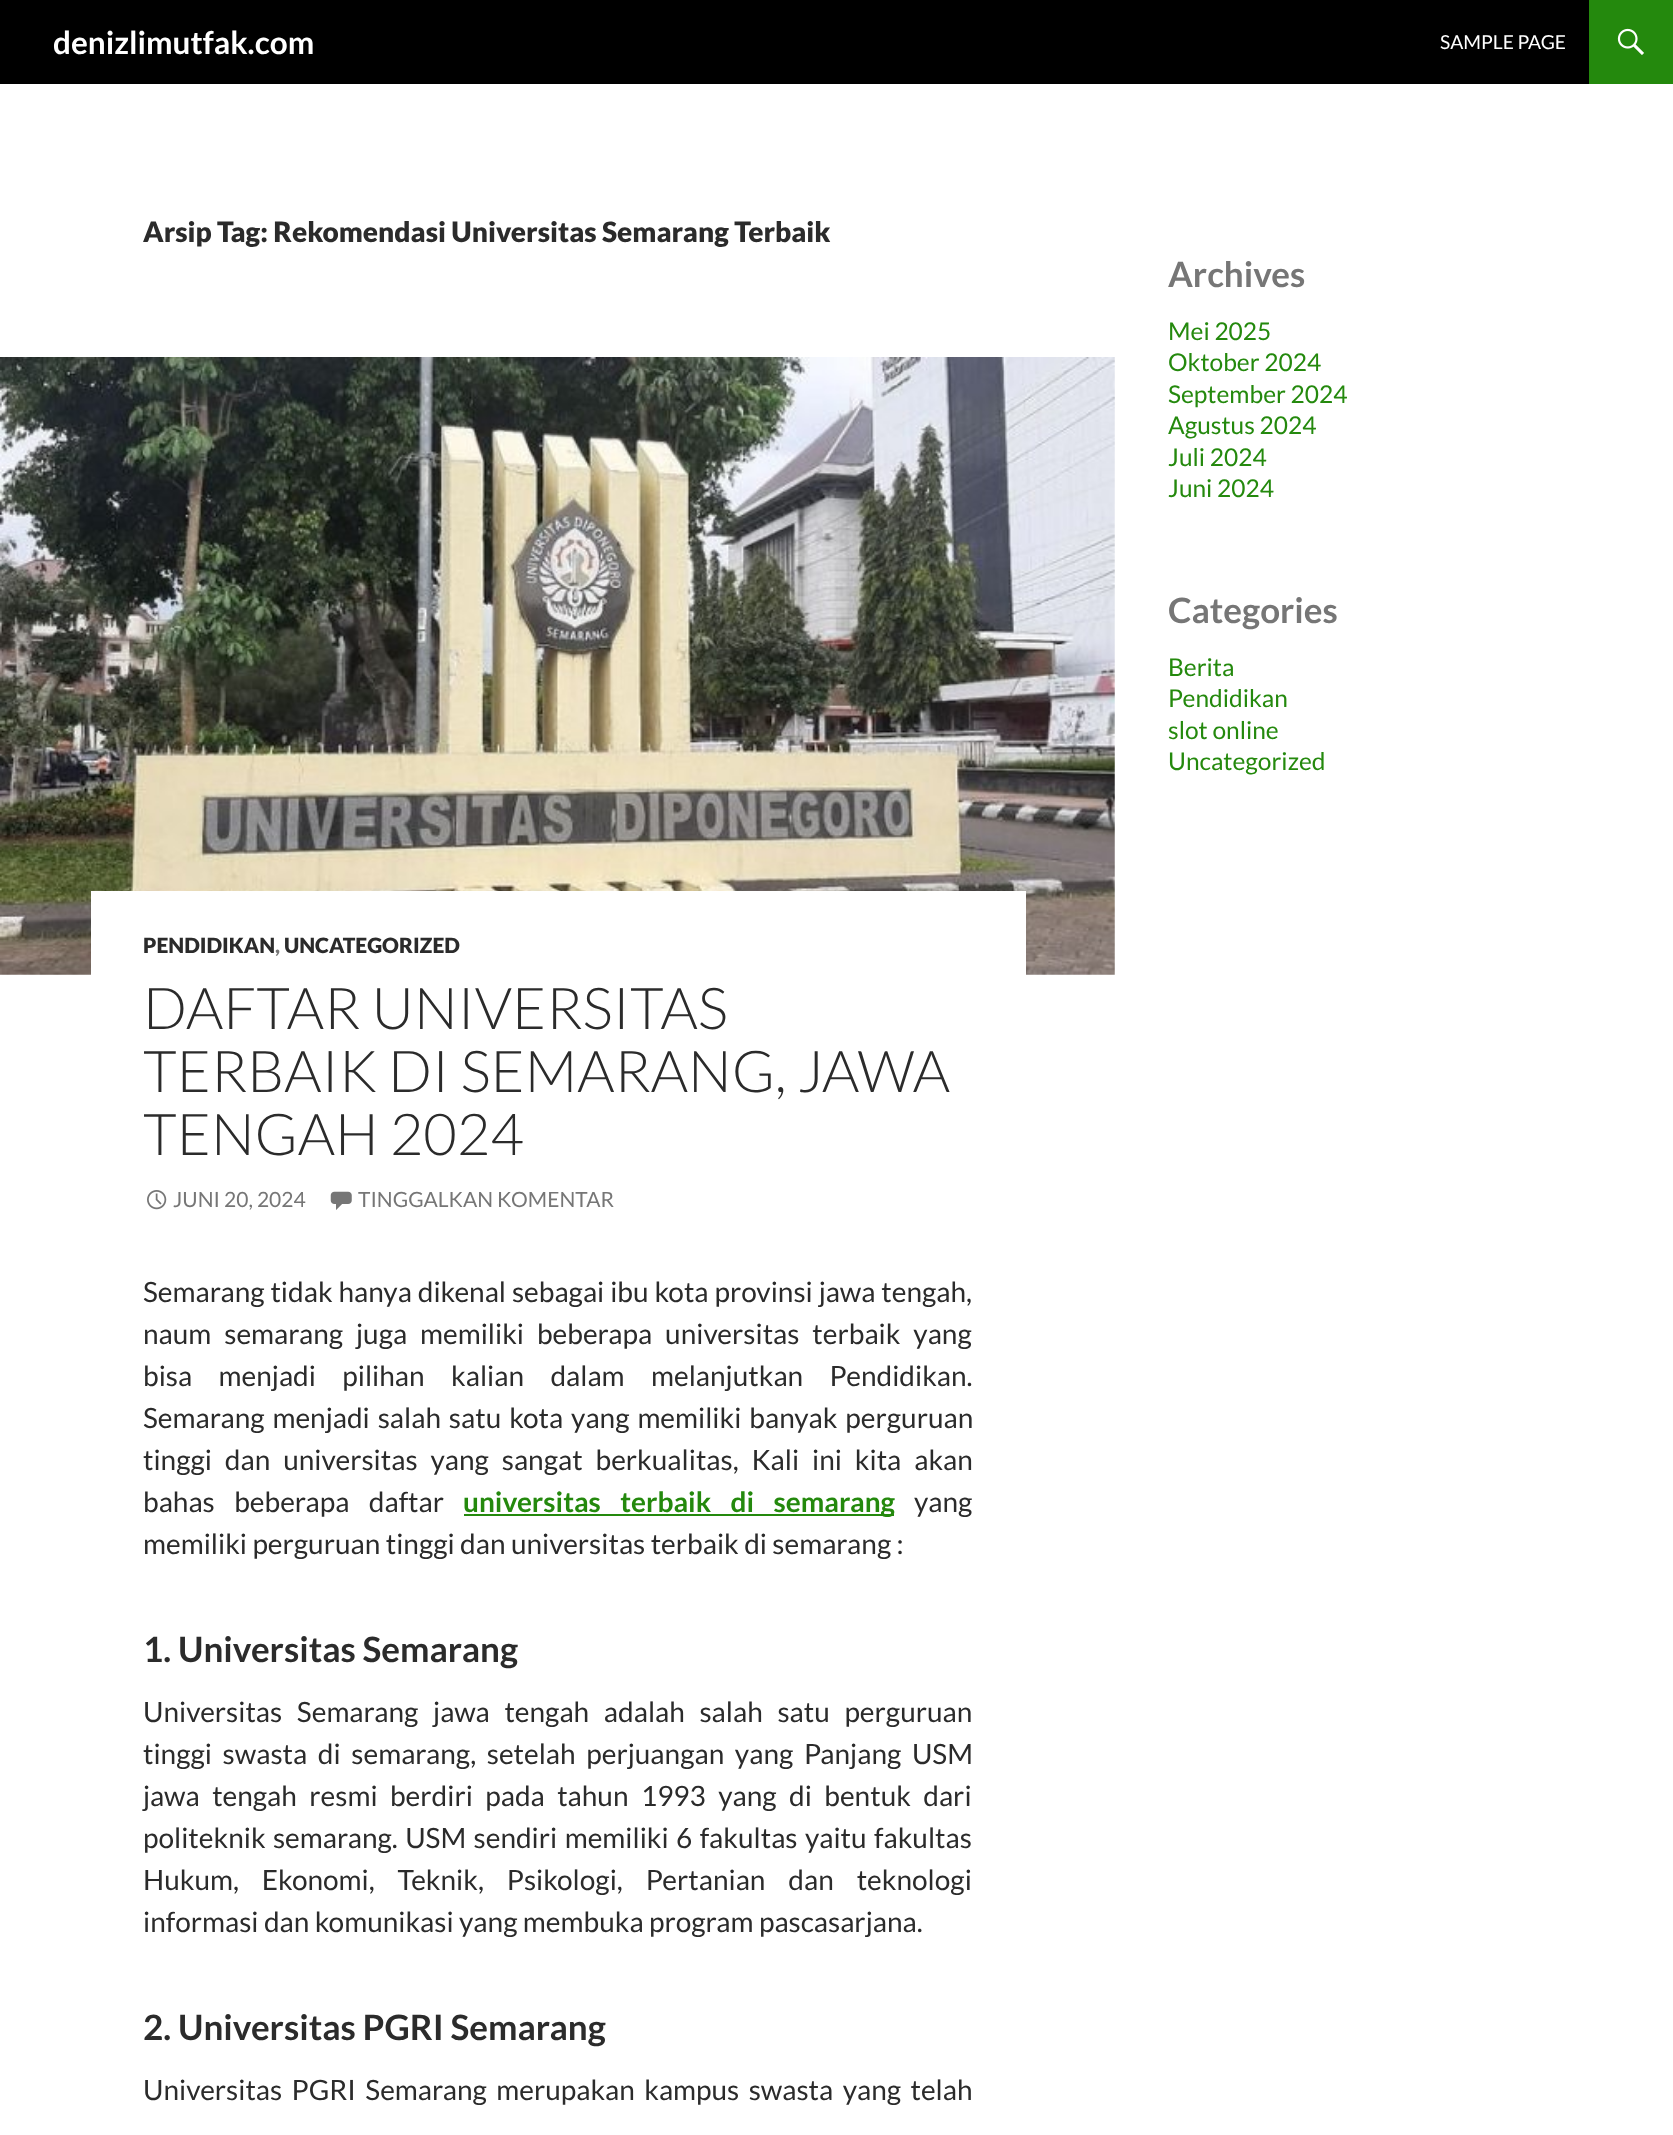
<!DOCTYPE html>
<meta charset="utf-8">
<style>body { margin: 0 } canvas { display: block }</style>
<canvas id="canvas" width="1673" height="2135"></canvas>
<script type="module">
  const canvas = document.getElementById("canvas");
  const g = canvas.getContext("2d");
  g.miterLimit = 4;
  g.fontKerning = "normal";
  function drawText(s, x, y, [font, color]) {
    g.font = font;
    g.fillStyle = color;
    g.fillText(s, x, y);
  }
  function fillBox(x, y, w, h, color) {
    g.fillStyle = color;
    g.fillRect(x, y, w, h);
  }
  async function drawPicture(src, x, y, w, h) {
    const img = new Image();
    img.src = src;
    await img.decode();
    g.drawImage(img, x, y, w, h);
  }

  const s1 = ["bold 31.5px Lato", "#FFFFFF"];
  const s2 = ["19.25px Lato", "#FFFFFF"];
  const s3 = ["900 28px Lato", "#2B2B2B"];
  const s4 = ["900 21px Lato", "#2B2B2B"];
  const s5 = ["900 21px Lato", "#767676"];
  const s6 = ["300 57.75px Lato", "#2B2B2B"];
  const s7 = ["21px Lato", "#767676"];
  const s8 = ["28px Lato", "#2B2B2B"];
  const s9 = ["bold 28px Lato", "#24890D"];
  const s10 = ["bold 35px Lato", "#2B2B2B"];
  const s11 = ["bold 35px Lato", "#767676"];
  const s12 = ["24.5px Lato", "#24890D"];

  fillBox(0, 0, 1673, 2135, "#FFFFFF");
  fillBox(0, 0, 1589, 84, "#000000");
  drawText("denizlimutfak.com", 53, 54, s1);
  drawText("SAMPLE PAGE", 1440, 49, s2);
  fillBox(1589, 0, 84, 84, "#24890D");
  await drawPicture("pic1.png", 1617, 28, 27, 27);
  drawText("Arsip Tag: Rekomendasi Universitas Semarang Terbaik", 143, 242, s3);
  await drawPicture("pic2.png", 0, 357, 1115, 618);
  await drawPicture("pic3.png", 0, 357, 1115, 618);
  fillBox(91, 891, 935, 84, "#FFFFFF");
  drawText("PENDIDIKAN", 143, 953, s4);
  drawText(",", 275, 953, s5);
  drawText("UNCATEGORIZED", 284, 953, s4);
  drawText("DAFTAR UNIVERSITAS", 143, 1029, s6);
  drawText("TERBAIK DI SEMARANG, JAWA", 143, 1092, s6);
  drawText("TENGAH 2024", 143, 1155, s6);
  await drawPicture("pic4.png", 147, 1190, 20, 20);
  drawText("JUNI 20, 2024", 173, 1207, s7);
  await drawPicture("pic5.png", 330, 1191, 22, 19);
  drawText("TINGGALKAN KOMENTAR", 358, 1207, s7);
  g.wordSpacing = "0.5px";
  drawText("Semarang tidak hanya dikenal sebagai ibu kota provinsi jawa tengah,", 143, 1302, s8);
  g.wordSpacing = "7.5px";
  drawText("naum semarang juga memiliki beberapa universitas terbaik yang", 143, 1344, s8);
  g.wordSpacing = "21px";
  drawText("bisa menjadi pilihan kalian dalam melanjutkan Pendidikan.", 143, 1386, s8);
  g.wordSpacing = "2.5px";
  drawText("Semarang menjadi salah satu kota yang memiliki banyak perguruan", 143, 1428, s8);
  g.wordSpacing = "7.5px";
  drawText("tinggi dan universitas yang sangat berkualitas, Kali ini kita akan", 143, 1470, s8);
  g.wordSpacing = "14px";
  drawText("bahas beberapa daftar", 143, 1512, s8);
  fillBox(464, 1514, 430, 2, "#24890D");
  drawText("universitas terbaik di semarang", 463, 1512, s9);
  g.wordSpacing = "0px";
  drawText("yang", 914, 1512, s8);
  drawText("memiliki perguruan tinggi dan universitas terbaik di semarang :", 143, 1554, s8);
  drawText("1. Universitas Semarang", 143, 1662, s10);
  g.wordSpacing = "9.25px";
  drawText("Universitas Semarang jawa tengah adalah salah satu perguruan", 143, 1722, s8);
  g.wordSpacing = "5.25px";
  drawText("tinggi swasta di semarang, setelah perjuangan yang Panjang USM", 143, 1764, s8);
  g.wordSpacing = "7px";
  drawText("jawa tengah resmi berdiri pada tahun 1993 yang di bentuk dari", 143, 1806, s8);
  g.wordSpacing = "2px";
  drawText("politeknik semarang. USM sendiri memiliki 6 fakultas yaitu fakultas", 143, 1848, s8);
  g.wordSpacing = "17.5px";
  drawText("Hukum, Ekonomi, Teknik, Psikologi, Pertanian dan teknologi", 143, 1890, s8);
  g.wordSpacing = "0px";
  drawText("informasi dan komunikasi yang membuka program pascasarjana.", 143, 1932, s8);
  drawText("2. Universitas PGRI Semarang", 143, 2040, s10);
  g.wordSpacing = "4px";
  drawText("Universitas PGRI Semarang merupakan kampus swasta yang telah", 143, 2100, s8);
  g.wordSpacing = "0px";
  drawText("Archives", 1168, 287, s11);
  drawText("Mei 2025", 1168, 340, s12);
  drawText("Oktober 2024", 1168, 371, s12);
  drawText("September 2024", 1168, 403, s12);
  drawText("Agustus 2024", 1168, 434, s12);
  drawText("Juli 2024", 1168, 466, s12);
  drawText("Juni 2024", 1168, 497, s12);
  drawText("Categories", 1168, 623, s11);
  drawText("Berita", 1168, 676, s12);
  drawText("Pendidikan", 1168, 707, s12);
  drawText("slot online", 1168, 739, s12);
  drawText("Uncategorized", 1168, 770, s12);
</script>
